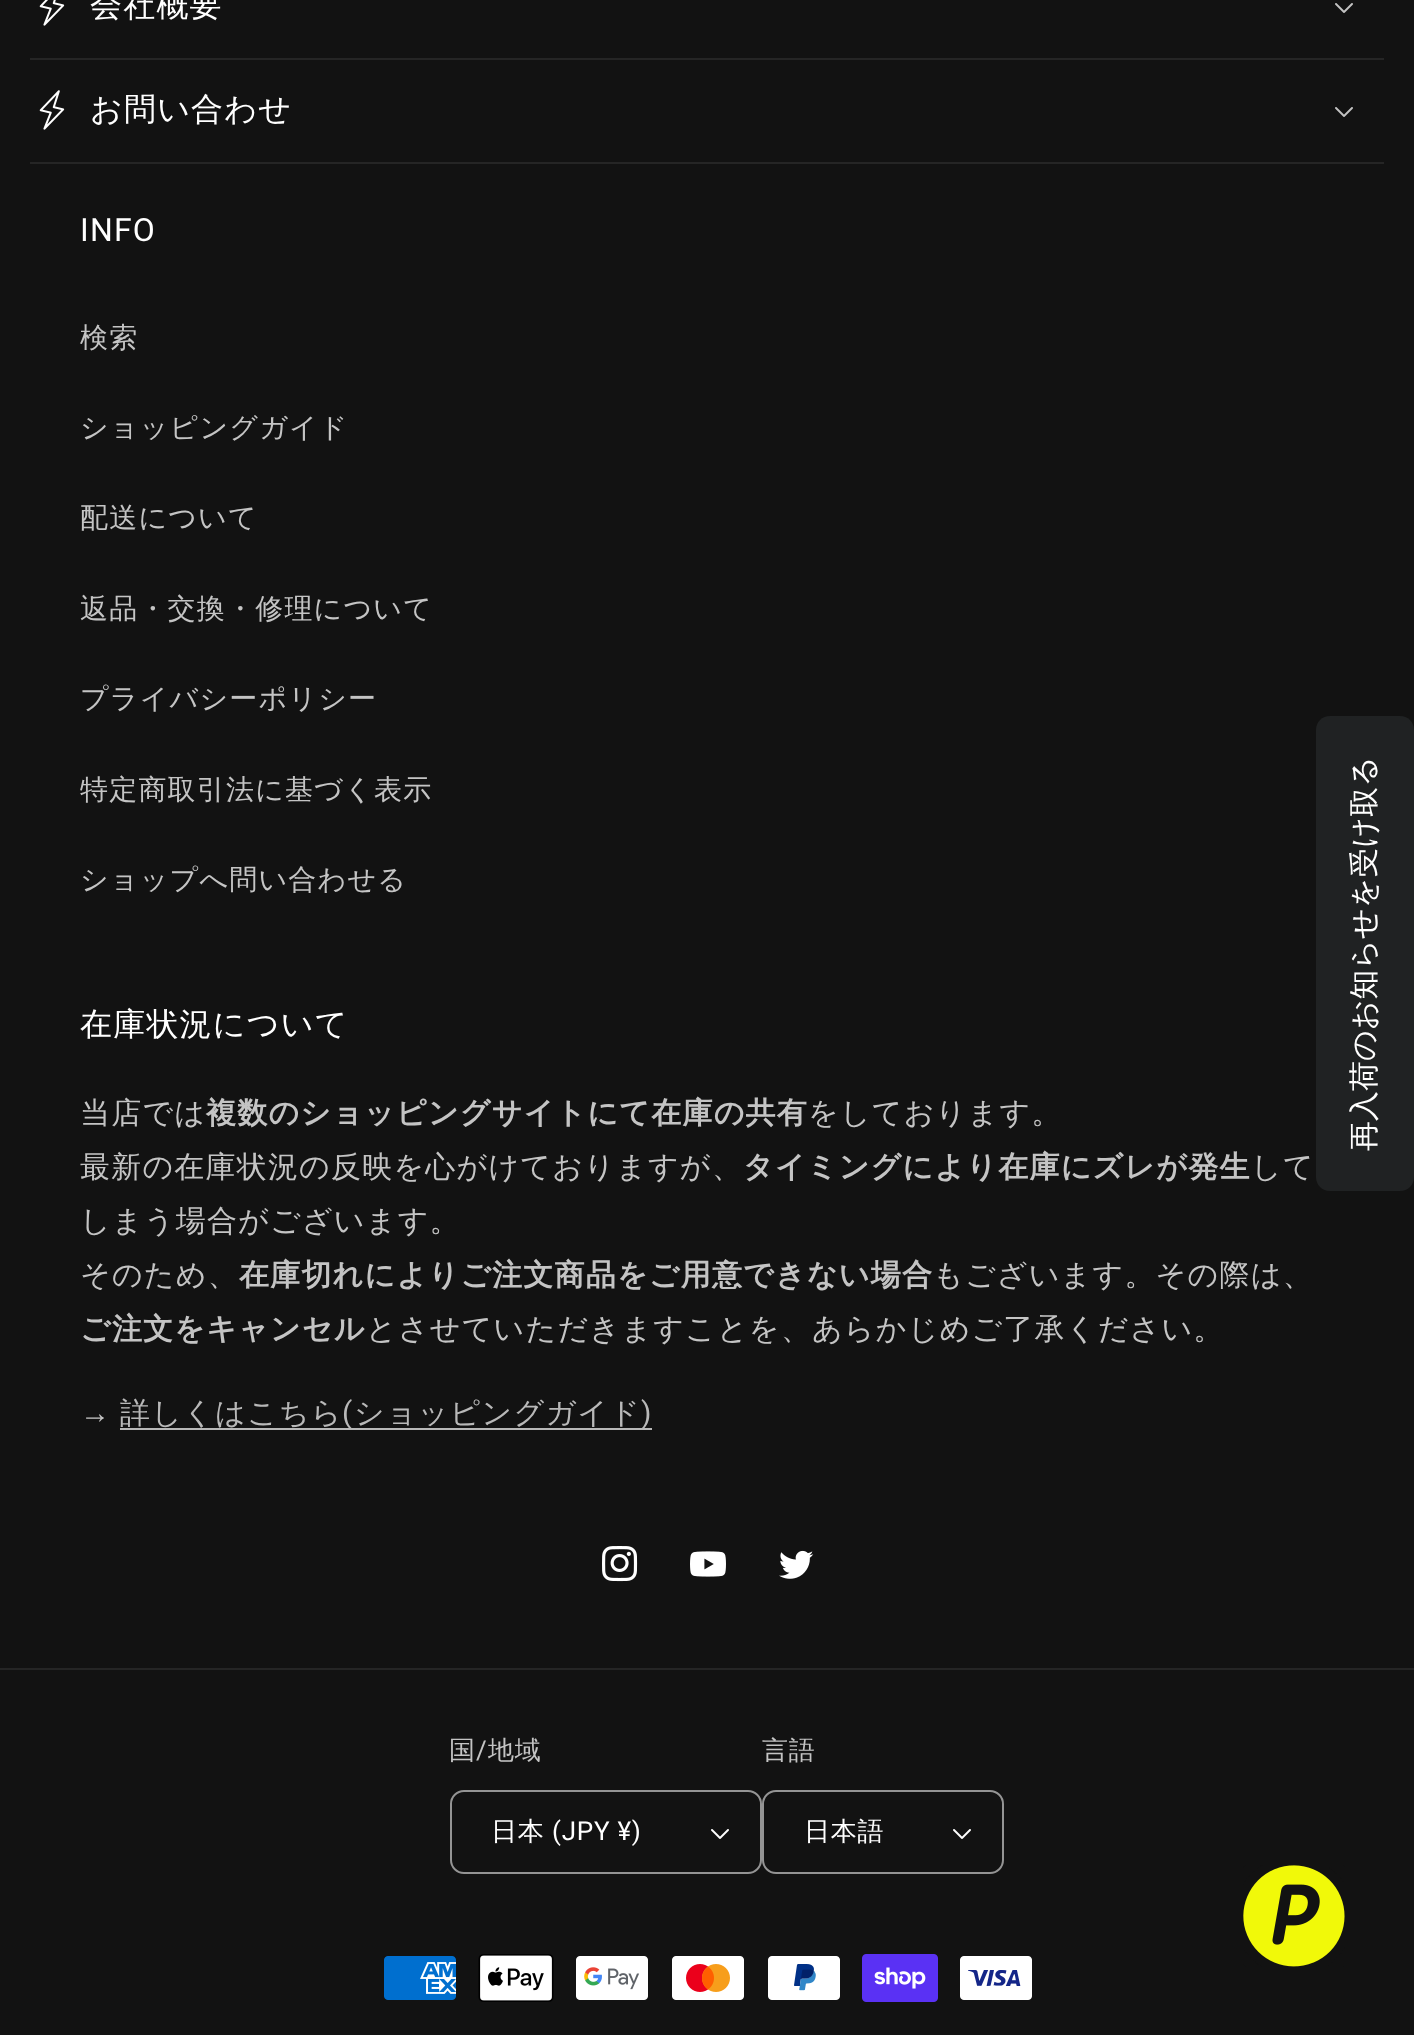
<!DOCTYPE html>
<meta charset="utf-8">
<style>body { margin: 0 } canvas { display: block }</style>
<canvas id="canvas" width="1414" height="2035"></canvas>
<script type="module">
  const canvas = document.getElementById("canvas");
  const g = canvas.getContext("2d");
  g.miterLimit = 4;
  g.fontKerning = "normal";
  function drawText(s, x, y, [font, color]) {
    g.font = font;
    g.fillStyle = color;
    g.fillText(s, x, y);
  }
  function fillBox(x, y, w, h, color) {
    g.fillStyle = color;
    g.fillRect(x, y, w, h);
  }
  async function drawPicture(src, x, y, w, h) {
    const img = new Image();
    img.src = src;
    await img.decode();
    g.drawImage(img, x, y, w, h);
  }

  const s1 = ["500 32px WenQuanYi Zen Hei", "#FFFFFF"];
  const s2 = ["32px Roboto", "#FFFFFF"];
  const s3 = ["500 28px WenQuanYi Zen Hei", "#C4C4C4"];
  const s4 = ["500 30px WenQuanYi Zen Hei", "#C4C4C4"];
  const s5 = ["bold 30px WenQuanYi Zen Hei", "#C4C4C4"];
  const s6 = ["30px Liberation Sans", "#C4C4C4"];
  const s7 = ["500 30px WenQuanYi Zen Hei", "#B8B8B8"];
  const s8 = ["30px Roboto", "#B8B8B8"];
  const s9 = ["500 26px WenQuanYi Zen Hei", "#C4C4C4"];
  const s10 = ["26px Roboto", "#C4C4C4"];
  const s11 = ["500 26px WenQuanYi Zen Hei", "#FFFFFF"];
  const s12 = ["26px Roboto", "#FFFFFF"];

  fillBox(0, 0, 1414, 2035, "#121212");
  fillBox(30, 58, 1354, 2, "#252525");
  await drawPicture("pic1.png", 39, 0, 26, 26);
  g.letterSpacing = "1.2px";
  drawText("会社概要", 90, 16, s1);
  await drawPicture("pic2.png", 1335, 3, 18, 10);
  fillBox(30, 162, 1354, 2, "#252525");
  await drawPicture("pic3.png", 39, 90, 26, 40);
  drawText("お問い合わせ", 90, 120, s1);
  await drawPicture("pic2.png", 1335, 107, 18, 10);
  drawText("INFO", 80, 241, s2);
  drawText("検索", 80, 347, s3);
  drawText("ショッピングガイド", 80, 437, s3);
  drawText("配送について", 80, 527, s3);
  drawText("返品・交換・修理について", 80, 618, s3);
  drawText("プライバシーポリシー", 80, 708, s3);
  drawText("特定商取引法に基づく表示", 80, 799, s3);
  drawText("ショップへ問い合わせる", 80, 889, s3);
  drawText("在庫状況について", 80, 1035, s1);
  drawText("当店では", 80, 1123, s4);
  drawText("複数のショッピングサイトにて在庫の共有", 206, 1123, s5);
  drawText("をしております。", 808, 1123, s4);
  drawText("最新の在庫状況の反映を心がけておりますが、", 80, 1177, s4);
  drawText("タイミングにより在庫にズレが発生", 743, 1177, s5);
  drawText("して", 1251, 1177, s4);
  drawText("しまう場合がございます。", 80, 1231, s4);
  drawText("そのため、", 80, 1285, s4);
  drawText("在庫切れによりご注文商品をご用意できない場合", 239, 1285, s5);
  drawText("もございます。その際は、", 933, 1285, s4);
  drawText("ご注文をキャンセル", 80, 1339, s5);
  drawText("とさせていただきますことを、あらかじめご了承ください。", 366, 1339, s4);
  drawText("→", 80, 1423, s6);
  drawText("詳しくはこちら", 120, 1423, s7);
  fillBox(120, 1428, 532, 2, "#B8B8B8");
  drawText("(", 342, 1423, s8);
  drawText("ショッピングガイド", 354, 1423, s7);
  drawText(")", 641, 1423, s8);
  await drawPicture("pic4.png", 602, 1546, 36, 36);
  await drawPicture("pic5.png", 690, 1551, 36, 26);
  await drawPicture("pic6.png", 779, 1550, 35, 29);
  fillBox(0, 1668, 1414, 2, "#252525");
  g.letterSpacing = "0.75px";
  drawText("国", 449, 1759, s9);
  drawText("/", 476, 1759, s10);
  drawText("地域", 488, 1759, s9);
  await drawPicture("pic7.png", 711, 1829, 18, 10);
  g.beginPath();
  g.roundRect(451, 1791, 310, 82, 13);
  g.strokeStyle = "#949494";
  g.lineWidth = 2;
  g.stroke();
  drawText("日本", 491, 1840, s11);
  drawText("(JPY ¥)", 552, 1840, s12);
  drawText("言語", 762, 1759, s9);
  await drawPicture("pic7.png", 953, 1829, 18, 10);
  g.beginPath();
  g.roundRect(763, 1791, 240, 82, 13);
  g.stroke();
  drawText("日本語", 804, 1840, s11);
  await drawPicture("pic8.png", 384, 1956, 72, 44);
  await drawPicture("pic9.png", 478, 1954, 76, 48);
  await drawPicture("pic10.png", 576, 1956, 72, 44);
  await drawPicture("pic11.png", 672, 1956, 72, 44);
  await drawPicture("pic12.png", 768, 1956, 72, 44);
  await drawPicture("pic13.png", 862, 1954, 76, 48);
  await drawPicture("pic14.png", 960, 1956, 72, 44);
  g.fillStyle = "#202223";
  g.beginPath();
  g.moveTo(1316, 1177);
  g.lineTo(1316, 730);
  g.bezierCurveTo(1316, 722, 1322, 716, 1330, 716);
  g.lineTo(1400, 716);
  g.bezierCurveTo(1408, 716, 1414, 722, 1414, 730);
  g.lineTo(1414, 1177);
  g.bezierCurveTo(1414, 1185, 1408, 1191, 1400, 1191);
  g.lineTo(1330, 1191);
  g.bezierCurveTo(1322, 1191, 1316, 1185, 1316, 1177);
  g.closePath();
  g.fill();
  g.letterSpacing = "0px";
  g.font = "500 30px WenQuanYi Zen Hei";
  g.fillStyle = "#FFFFFF";
  g.save();
  g.translate(1374, 1151);
  g.rotate(-90 * Math.PI / 180);
  g.fillText("再入荷のお知らせを受け取る", 0, 0);
  g.restore();
  await drawPicture("pic15.png", 1243, 1865, 102, 102);
</script>
